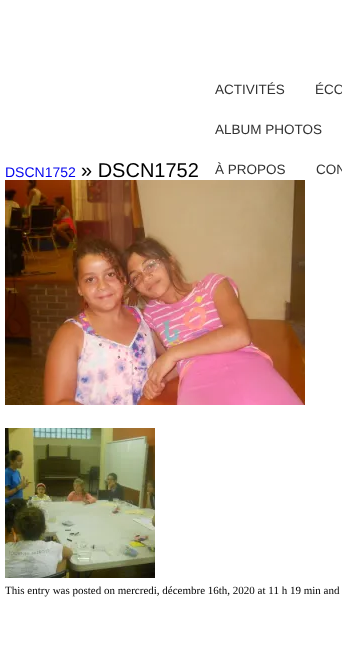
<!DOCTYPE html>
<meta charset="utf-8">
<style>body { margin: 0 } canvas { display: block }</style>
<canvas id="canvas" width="342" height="651"></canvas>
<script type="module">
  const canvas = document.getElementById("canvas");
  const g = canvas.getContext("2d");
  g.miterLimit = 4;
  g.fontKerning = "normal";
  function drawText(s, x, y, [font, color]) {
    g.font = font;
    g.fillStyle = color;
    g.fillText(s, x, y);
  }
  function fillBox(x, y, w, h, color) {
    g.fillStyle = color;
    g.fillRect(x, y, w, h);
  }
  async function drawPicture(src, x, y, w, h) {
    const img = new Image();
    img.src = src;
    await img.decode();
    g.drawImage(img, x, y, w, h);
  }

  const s1 = ["13.5px Liberation Sans", "#333333"];
  const s2 = ["14px Liberation Sans", "#0000EE"];
  const s3 = ["20px Liberation Sans", "#000000"];
  const s4 = ["11px Liberation Serif", "#000000"];

  fillBox(0, 0, 342, 651, "#FFFFFF");
  drawText("ACTIVITÉS", 215, 94, s1);
  drawText("ÉCO", 315, 94, s1);
  drawText("ALBUM PHOTOS", 215, 134, s1);
  drawText("À PROPOS", 215, 174, s1);
  drawText("CON", 316, 174, s1);
  drawText("DSCN1752", 5, 177, s2);
  drawText("» DSCN1752", 81, 177, s3);
  await drawPicture("pic1.png", 5, 180, 300, 225);
  await drawPicture("pic2.png", 5, 428, 150, 150);
  drawText("This entry was posted on mercredi, décembre 16th, 2020 at 11 h 19 min and", 5, 594, s4);
</script>
